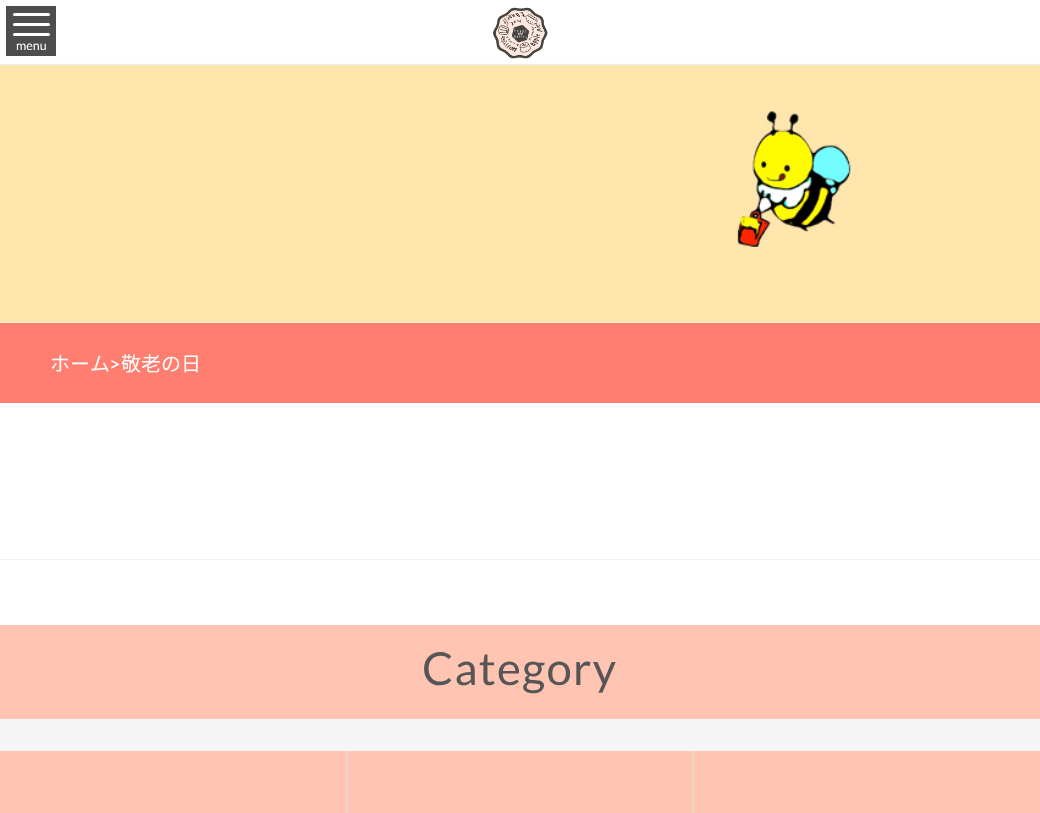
<!DOCTYPE html>
<meta charset="utf-8">
<style>body { margin: 0 } canvas { display: block }</style>
<canvas id="canvas" width="1040" height="813"></canvas>
<script type="module">
  const canvas = document.getElementById("canvas");
  const g = canvas.getContext("2d");
  g.miterLimit = 4;
  g.fontKerning = "normal";
  function drawText(s, x, y, [font, color]) {
    g.font = font;
    g.fillStyle = color;
    g.fillText(s, x, y);
  }
  function fillBox(x, y, w, h, color) {
    g.fillStyle = color;
    g.fillRect(x, y, w, h);
  }
  function fillRounded(x, y, w, h, r, color) {
    g.fillStyle = color;
    g.beginPath();
    g.roundRect(x, y, w, h, r);
    g.fill();
  }
  async function drawPicture(src, x, y, w, h) {
    const img = new Image();
    img.src = src;
    await img.decode();
    g.drawImage(img, x, y, w, h);
  }

  const s1 = ["12.5px Lato", "#FFFFFF"];
  const s2 = ["20px Noto Sans JP", "#FFFFFF"];
  const s3 = ["20px Lato", "#FFFFFF"];
  const s4 = ["45.5px Lato", "#565656"];

  fillBox(0, 0, 1040, 813, "#FFFFFF");
  await drawPicture("pic2.png", 0, 62, 1040, 261);
  fillBox(0, 62, 1040, 2, "rgba(255, 255, 255, 0.9)");
  fillBox(0, 64, 1040, 1, "#EEEEEE");
  fillBox(6, 6, 50, 50, "#4D4D4D");
  fillRounded(13, 13, 37, 3, 1.5, "#FFFFFF");
  fillRounded(13, 23, 37, 3, 1.5, "#FFFFFF");
  fillRounded(13, 33, 37, 3, 1.5, "#FFFFFF");
  drawText("menu", 16, 50, s1);
  await drawPicture("pic1.png", 493, 7, 55, 52);
  fillBox(0, 323, 1040, 80, "#FF7E70");
  drawText("ホーム", 50, 371, s2);
  drawText(">", 109, 371, s3);
  drawText("敬老の日", 121, 371, s2);
  fillBox(0, 559, 1040, 1, "#F1F1F1");
  fillBox(0, 719, 1040, 32, "#F5F5F5");
  fillBox(0, 625, 1040, 94, "#FFC4B2");
  g.letterSpacing = "1.25px";
  drawText("Category", 422, 685, s4);
  fillBox(0, 751, 346, 62, "#FFC4B2");
  fillBox(347, 751, 346, 62, "#FFC4B2");
  fillBox(346, 751, 1, 62, "#DDDDDD");
  fillBox(694, 751, 346, 62, "#FFC4B2");
  fillBox(693, 751, 1, 62, "#DDDDDD");
</script>
